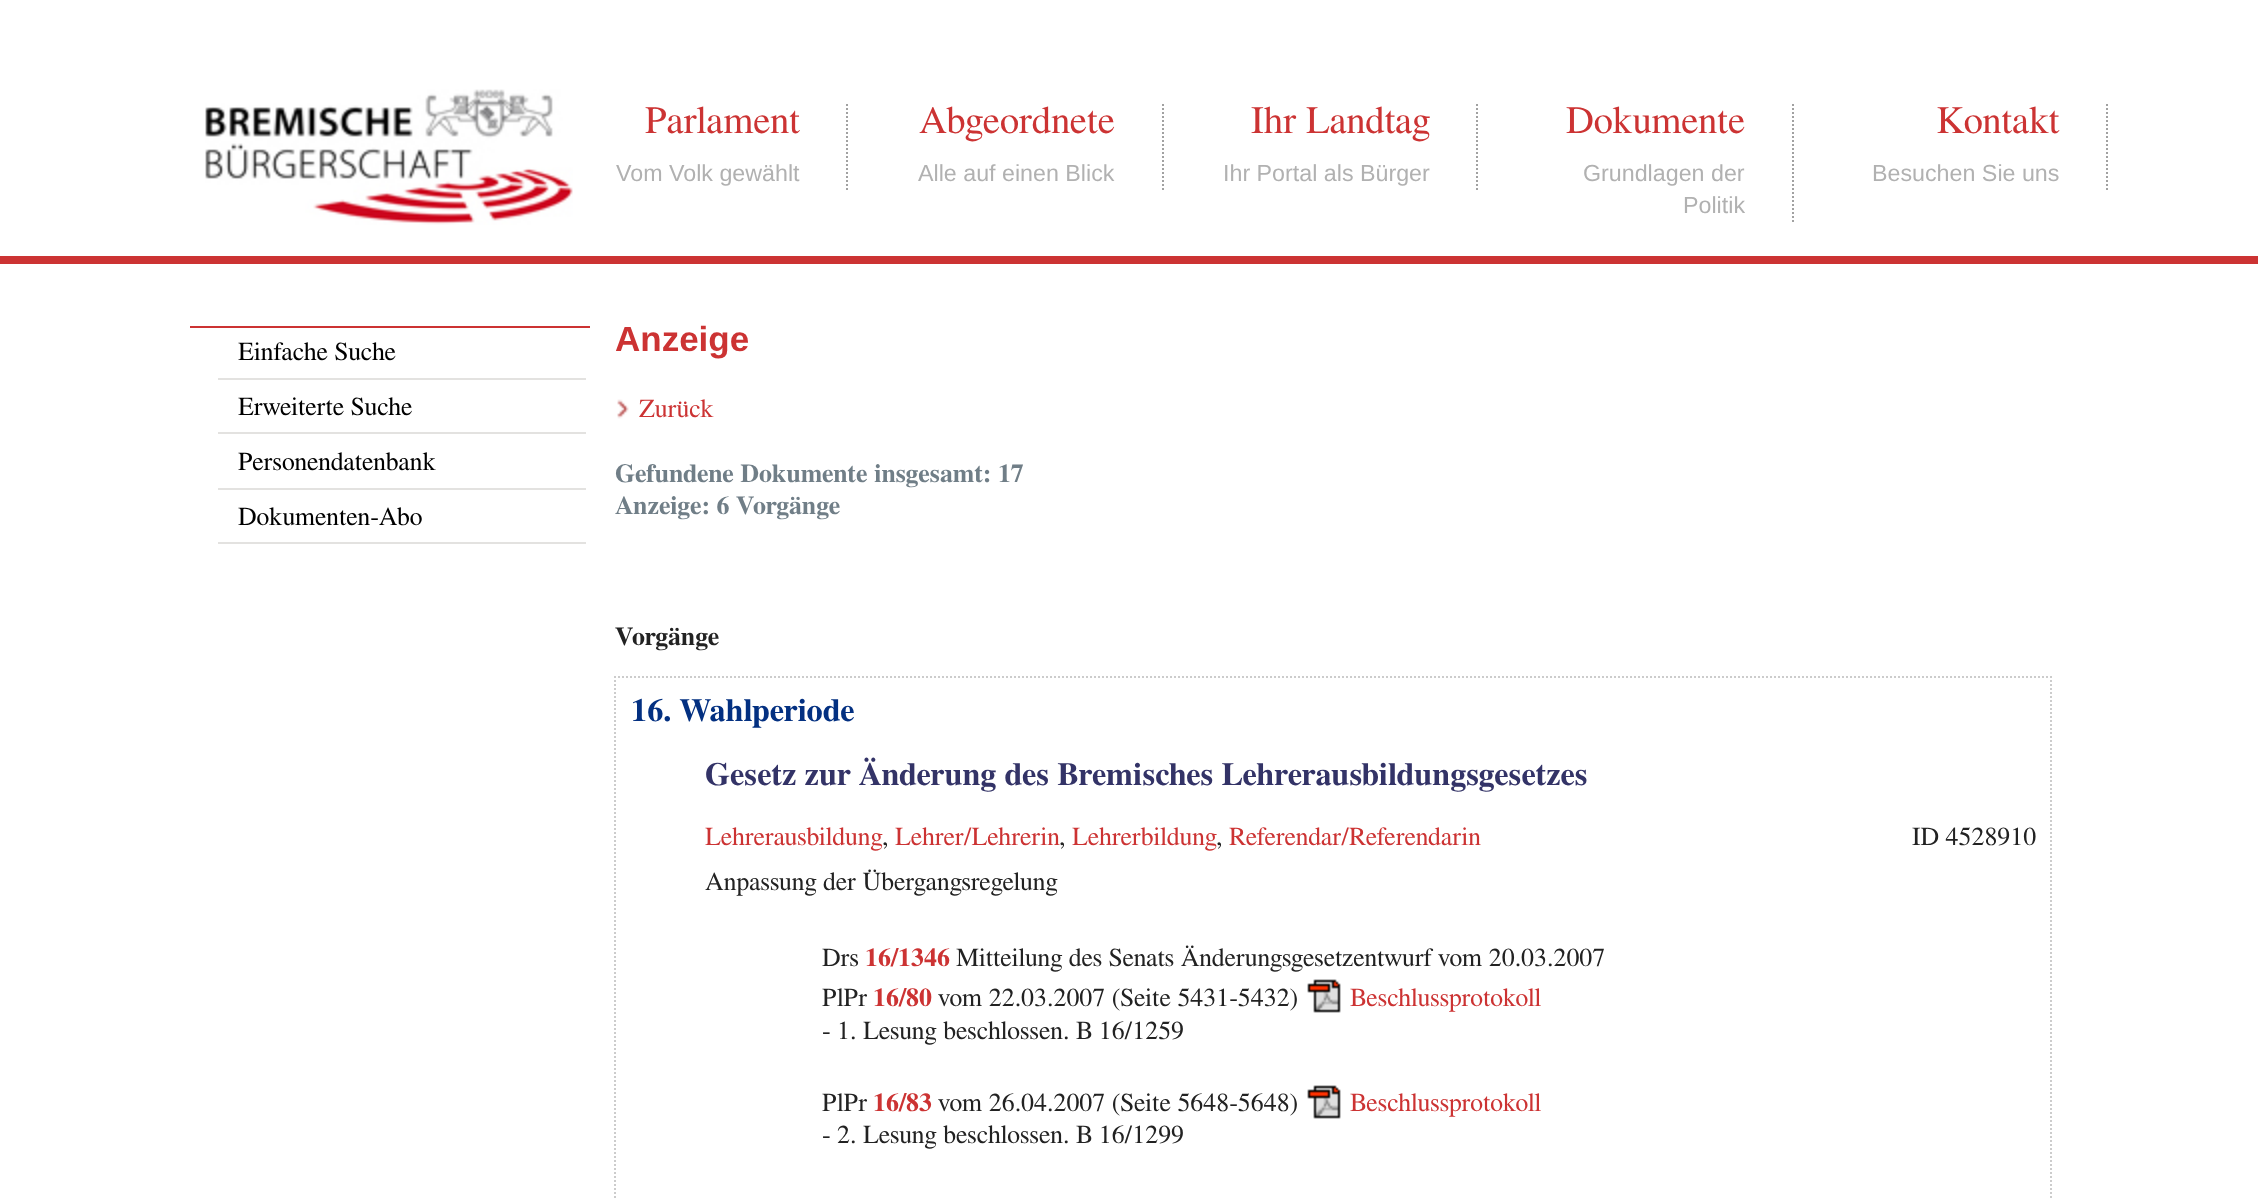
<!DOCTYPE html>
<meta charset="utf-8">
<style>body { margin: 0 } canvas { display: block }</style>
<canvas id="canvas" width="2258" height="1198"></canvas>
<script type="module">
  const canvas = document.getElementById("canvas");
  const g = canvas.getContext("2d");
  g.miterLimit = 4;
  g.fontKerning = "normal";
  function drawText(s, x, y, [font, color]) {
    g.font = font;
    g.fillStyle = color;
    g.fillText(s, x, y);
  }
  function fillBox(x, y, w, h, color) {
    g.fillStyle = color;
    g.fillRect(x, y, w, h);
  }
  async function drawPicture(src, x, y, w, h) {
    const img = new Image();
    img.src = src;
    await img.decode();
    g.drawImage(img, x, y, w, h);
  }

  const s1 = ["38.75px FreeSerif", "#CC3333"];
  const s2 = ["23.25px Liberation Sans", "#B1B1B1"];
  const s3 = ["25.9px FreeSerif", "#000000"];
  const s4 = ["bold 35px Liberation Sans", "#CC3333"];
  const s5 = ["25.9px FreeSerif", "#CC3333"];
  const s6 = ["bold 25.9px FreeSerif", "#707E87"];
  const s7 = ["bold 25.9px FreeSerif", "#222222"];
  const s8 = ["bold 32.3px FreeSerif", "#033081"];
  const s9 = ["bold 32.3px FreeSerif", "#333367"];
  const s10 = ["25.9px FreeSerif", "#222222"];
  const s11 = ["bold 25.9px FreeSerif", "#CC3333"];

  fillBox(0, 0, 2258, 1198, "#FFFFFF");
  fillBox(0, 256, 2258, 8, "#CC3333");
  await drawPicture("pic1.png", 205, 89, 368, 136);
  g.beginPath();
  g.moveTo(847, 104);
  g.lineTo(847, 190);
  g.strokeStyle = "#A1A1A1";
  g.lineWidth = 2;
  g.setLineDash([2, 2]);
  g.stroke();
  drawText("Parlament", 645, 133, s1);
  drawText("Vom Volk gewählt", 616, 181, s2);
  g.beginPath();
  g.moveTo(1163, 104);
  g.lineTo(1163, 190);
  g.stroke();
  drawText("Abgeordnete", 919, 133, s1);
  drawText("Alle auf einen Blick", 918, 181, s2);
  g.beginPath();
  g.moveTo(1477, 104);
  g.lineTo(1477, 190);
  g.stroke();
  drawText("Ihr Landtag", 1251, 133, s1);
  drawText("Ihr Portal als Bürger", 1223, 181, s2);
  g.beginPath();
  g.moveTo(1793, 104);
  g.lineTo(1793, 222);
  g.stroke();
  drawText("Dokumente", 1566, 133, s1);
  drawText("Grundlagen der", 1583, 181, s2);
  drawText("Politik", 1683, 213, s2);
  g.beginPath();
  g.moveTo(2107, 104);
  g.lineTo(2107, 190);
  g.stroke();
  drawText("Kontakt", 1937, 133, s1);
  drawText("Besuchen Sie uns", 1872, 181, s2);
  fillBox(190, 326, 400, 2, "#CC3333");
  fillBox(218, 378, 368, 2, "#E3E2E0");
  drawText("Einfache Suche", 238, 360, s3);
  fillBox(218, 432, 368, 2, "#E3E2E0");
  drawText("Erweiterte Suche", 238, 415, s3);
  fillBox(218, 488, 368, 2, "#E3E2E0");
  drawText("Personendatenbank", 238, 470, s3);
  fillBox(218, 542, 368, 2, "#E3E2E0");
  drawText("Dokumenten-Abo", 238, 525, s3);
  drawText("Anzeige", 615, 351, s4);
  await drawPicture("pic2.png", 617, 399, 12, 20);
  drawText("Zurück", 639, 417, s5);
  drawText("Gefundene Dokumente insgesamt: 17", 615, 482, s6);
  drawText("Anzeige: 6 Vorgänge", 615, 514, s6);
  drawText("Vorgänge", 615, 645, s7);
  g.beginPath();
  g.moveTo(614, 677);
  g.lineTo(2052, 677);
  g.strokeStyle = "#CCCCCC";
  g.stroke();
  g.beginPath();
  g.moveTo(2051, 676);
  g.lineTo(2051, 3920);
  g.stroke();
  g.beginPath();
  g.moveTo(615, 676);
  g.lineTo(615, 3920);
  g.stroke();
  drawText("16. Wahlperiode", 631, 721, s8);
  drawText("Gesetz zur Änderung des Bremisches Lehrerausbildungsgesetzes", 705, 785, s9);
  drawText("Lehrerausbildung", 705, 845, s5);
  drawText(",", 882, 845, s10);
  drawText("Lehrer/Lehrerin", 895, 845, s5);
  drawText(",", 1059, 845, s10);
  drawText("Lehrerbildung", 1072, 845, s5);
  drawText(",", 1216, 845, s10);
  drawText("Referendar/Referendarin", 1229, 845, s5);
  drawText("ID 4528910", 1912, 845, s10);
  drawText("Anpassung der Übergangsregelung", 705, 890, s10);
  drawText("Drs", 822, 966, s10);
  drawText("16/1346", 865, 966, s11);
  drawText("Mitteilung des Senats Änderungsgesetzentwurf", 956, 966, s10);
  drawText("vom 20.03.2007", 1438, 966, s10);
  drawText("PlPr", 822, 1006, s10);
  drawText("16/80", 873, 1006, s11);
  drawText("vom 22.03.2007 (Seite 5431-5432)", 938, 1006, s10);
  await drawPicture("pic3.png", 1307, 979, 34, 34);
  drawText("Beschlussprotokoll", 1350, 1006, s5);
  drawText("- 1. Lesung beschlossen. B 16/1259", 822, 1039, s10);
  drawText("PlPr", 822, 1111, s10);
  drawText("16/83", 873, 1111, s11);
  drawText("vom 26.04.2007 (Seite 5648-5648)", 938, 1111, s10);
  await drawPicture("pic3.png", 1307, 1085, 34, 34);
  drawText("Beschlussprotokoll", 1350, 1111, s5);
  drawText("- 2. Lesung beschlossen. B 16/1299", 822, 1143, s10);
</script>
